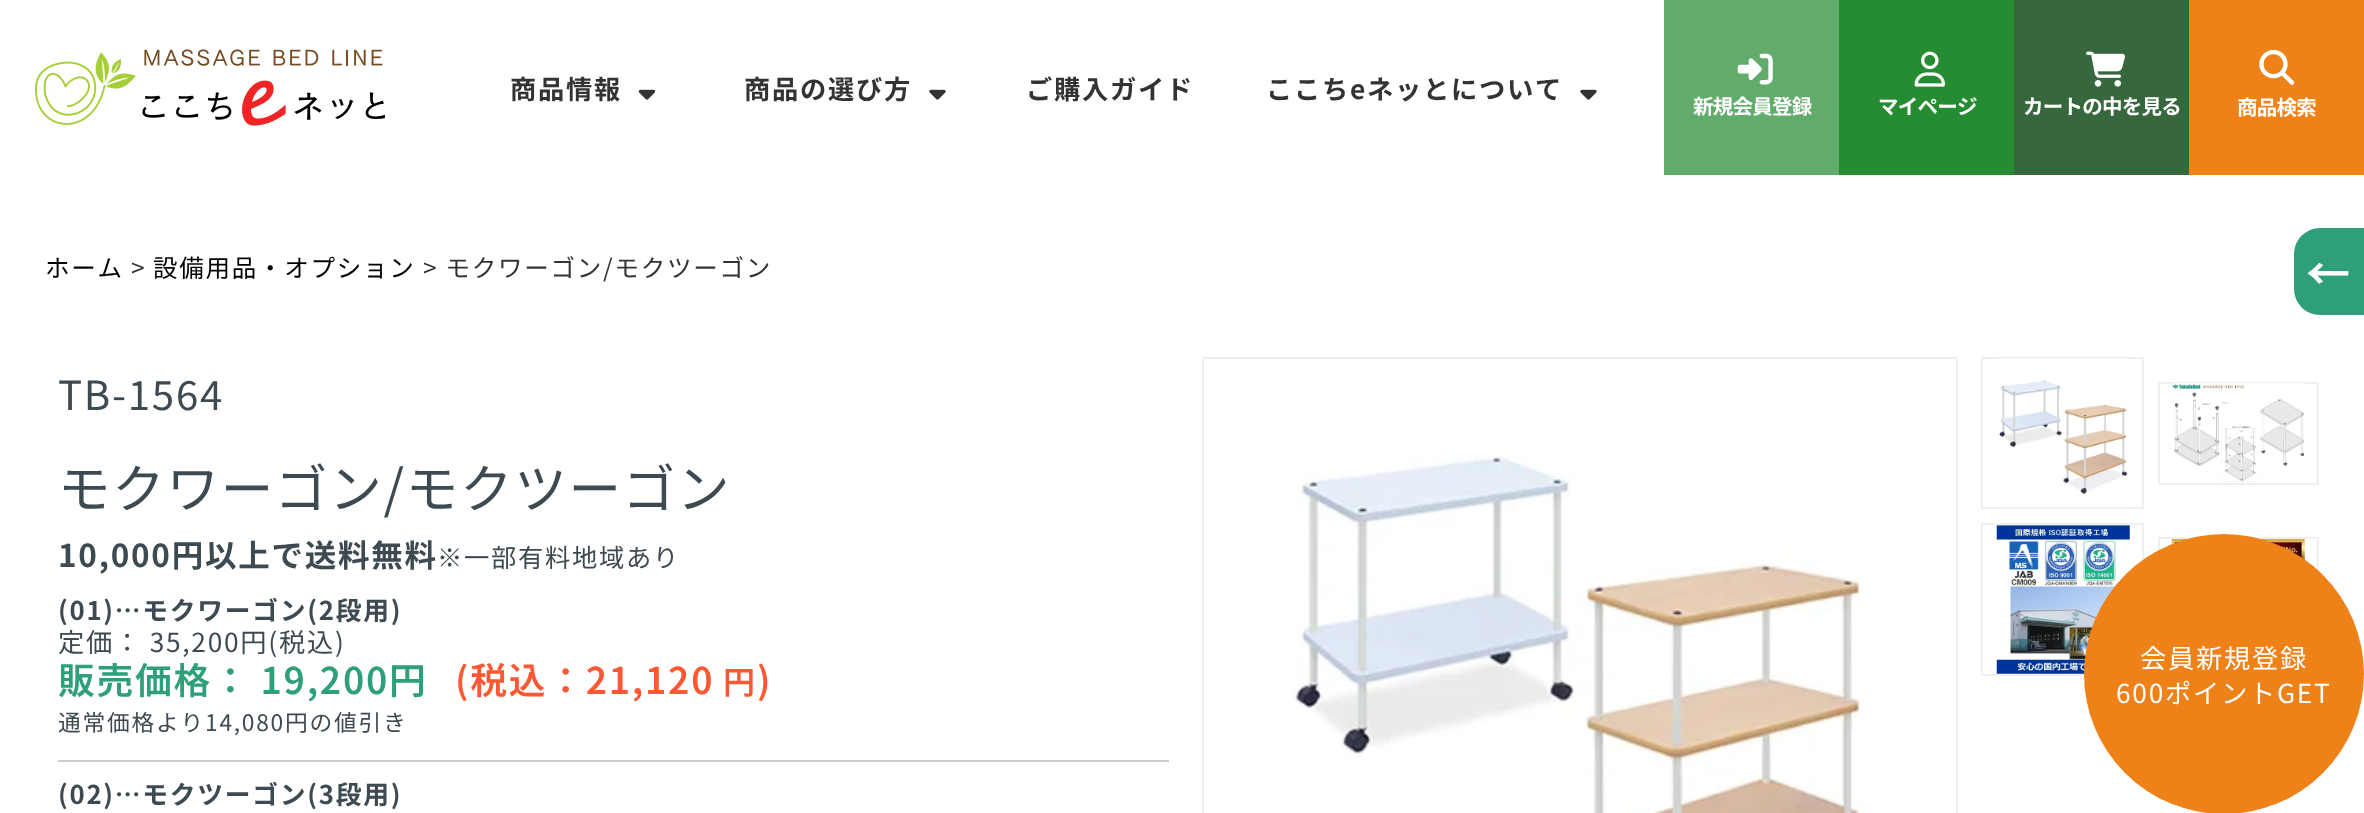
<!DOCTYPE html>
<meta charset="utf-8">
<style>body { margin: 0 } canvas { display: block }</style>
<canvas id="canvas" width="2364" height="813"></canvas>
<script type="module">
  const canvas = document.getElementById("canvas");
  const g = canvas.getContext("2d");
  g.miterLimit = 4;
  g.fontKerning = "none";
  function drawText(s, x, y, [font, color]) {
    g.font = font;
    g.fillStyle = color;
    g.fillText(s, x, y);
  }
  function fillBox(x, y, w, h, color) {
    g.fillStyle = color;
    g.fillRect(x, y, w, h);
  }
  async function drawPicture(src, x, y, w, h) {
    const img = new Image();
    img.src = src;
    await img.decode();
    g.drawImage(img, x, y, w, h);
  }

  const s1 = ["bold 26.25px Noto Sans JP", "#333333"];
  const s2 = ["bold 20.5px Noto Sans JP", "#FFFFFF"];
  const s3 = ["24.5px Noto Sans JP", "#000000"];
  const s4 = ["24.5px Noto Sans JP", "#333333"];
  const s5 = ["40.25px Noto Sans JP", "#3E4A51"];
  const s6 = ["52.5px Noto Sans JP", "#3E4A51"];
  const s7 = ["bold 31.5px Noto Sans JP", "#3E4A51"];
  const s8 = ["25.25px Noto Sans JP", "#3E4A51"];
  const s9 = ["bold 25.75px Noto Sans JP", "#3E4A51"];
  const s10 = ["26.25px Noto Sans JP", "#3E4A51"];
  const s11 = ["600 36.75px Noto Sans JP", "#2F9F7A"];
  const s12 = ["600 36.75px Noto Sans JP", "#FB5833"];
  const s13 = ["600 32px Noto Sans JP", "#FB5833"];
  const s14 = ["22.75px Noto Sans JP", "#3E4A51"];
  const s15 = ["bold 44px Noto Sans JP", "#FFFFFF"];
  const s16 = ["26.25px Noto Sans JP", "#FFFFFF"];

  fillBox(0, 0, 2364, 813, "#FFFFFF");
  await drawPicture("pic1.png", 35, 49, 350, 77);
  g.letterSpacing = "1.75px";
  drawText("商品情報", 510, 99, s1);
  await drawPicture("pic2.png", 638, 89, 18, 11);
  drawText("商品の選び方", 744, 99, s1);
  await drawPicture("pic3.png", 929, 89, 17, 11);
  drawText("ご購入ガイド", 1026, 99, s1);
  drawText("ここちeネッとについて", 1266, 99, s1);
  await drawPicture("pic3.png", 1580, 89, 17, 11);
  fillBox(1664, 0, 175, 175, "#62AC6B");
  await drawPicture("pic4.png", 1737, 53, 36, 32);
  g.letterSpacing = "-0.75px";
  drawText("新規会員登録", 1693, 114, s2);
  fillBox(1839, 0, 175, 175, "#258C31");
  await drawPicture("pic5.png", 1914, 51, 32, 36);
  drawText("マイページ", 1878, 114, s2);
  fillBox(2014, 0, 175, 175, "#37683D");
  await drawPicture("pic6.png", 2086, 51, 39, 36);
  drawText("カートの中を見る", 2023, 114, s2);
  fillBox(2189, 0, 175, 175, "#EE8117");
  await drawPicture("pic7.png", 2259, 49, 36, 36);
  drawText("商品検索", 2237, 115, s2);
  g.letterSpacing = "1.75px";
  drawText("ホーム", 45, 277, s3);
  drawText(">", 131, 277, s4);
  drawText("設備用品・オプション", 153, 277, s3);
  drawText("> モクワーゴン/モクツーゴン", 423, 277, s4);
  drawText("TB-1564", 58, 410, s5);
  drawText("モクワーゴン/モクツーゴン", 58, 508, s6);
  drawText("10,000円以上で送料無料", 58, 567, s7);
  drawText("※一部有料地域あり", 437, 567, s8);
  drawText("(01)…モクワーゴン(2段用)", 58, 620, s9);
  drawText("定価： 35,200円(税込)", 58, 652, s10);
  drawText("販売価格： 19,200円", 58, 694, s11);
  drawText("(税込：21,120", 455, 694, s12);
  drawText("円", 723, 694, s13);
  drawText(")", 757, 694, s12);
  fillBox(58, 760, 1111, 2, "#CCCCCC");
  drawText("通常価格より14,080円の値引き", 58, 731, s14);
  drawText("(02)…モクツーゴン(3段用)", 58, 804, s9);
  g.strokeStyle = "#EFEFEF";
  g.lineWidth = 2;
  g.strokeRect(1203, 358, 754, 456);
  await drawPicture("pic8.png", 1292, 456, 569, 357);
  g.strokeRect(1982, 358, 161, 150);
  await drawPicture("pic9.png", 1997, 358, 133, 150);
  g.strokeRect(2159, 383, 159, 101);
  await drawPicture("pic10.png", 2172, 383, 133, 99);
  g.strokeRect(1982, 524, 161, 151);
  await drawPicture("pic11.png", 1996, 525, 134, 149);
  g.strokeRect(2159, 538, 159, 123);
  await drawPicture("pic12.png", 2171, 539, 134, 21);
  g.fillStyle = "#2F9F7A";
  g.beginPath();
  g.roundRect(2294, 228, 70, 87, [26, 0, 0, 26]);
  g.fill();
  drawText("←", 2306, 290, s15);
  g.fillStyle = "#EE8117";
  g.beginPath();
  g.arc(2224, 674, 140, 0, Math.PI * 2);
  g.fill();
  drawText("会員新規登録", 2140, 668, s16);
  drawText("600ポイントGET", 2116, 703, s16);
</script>
